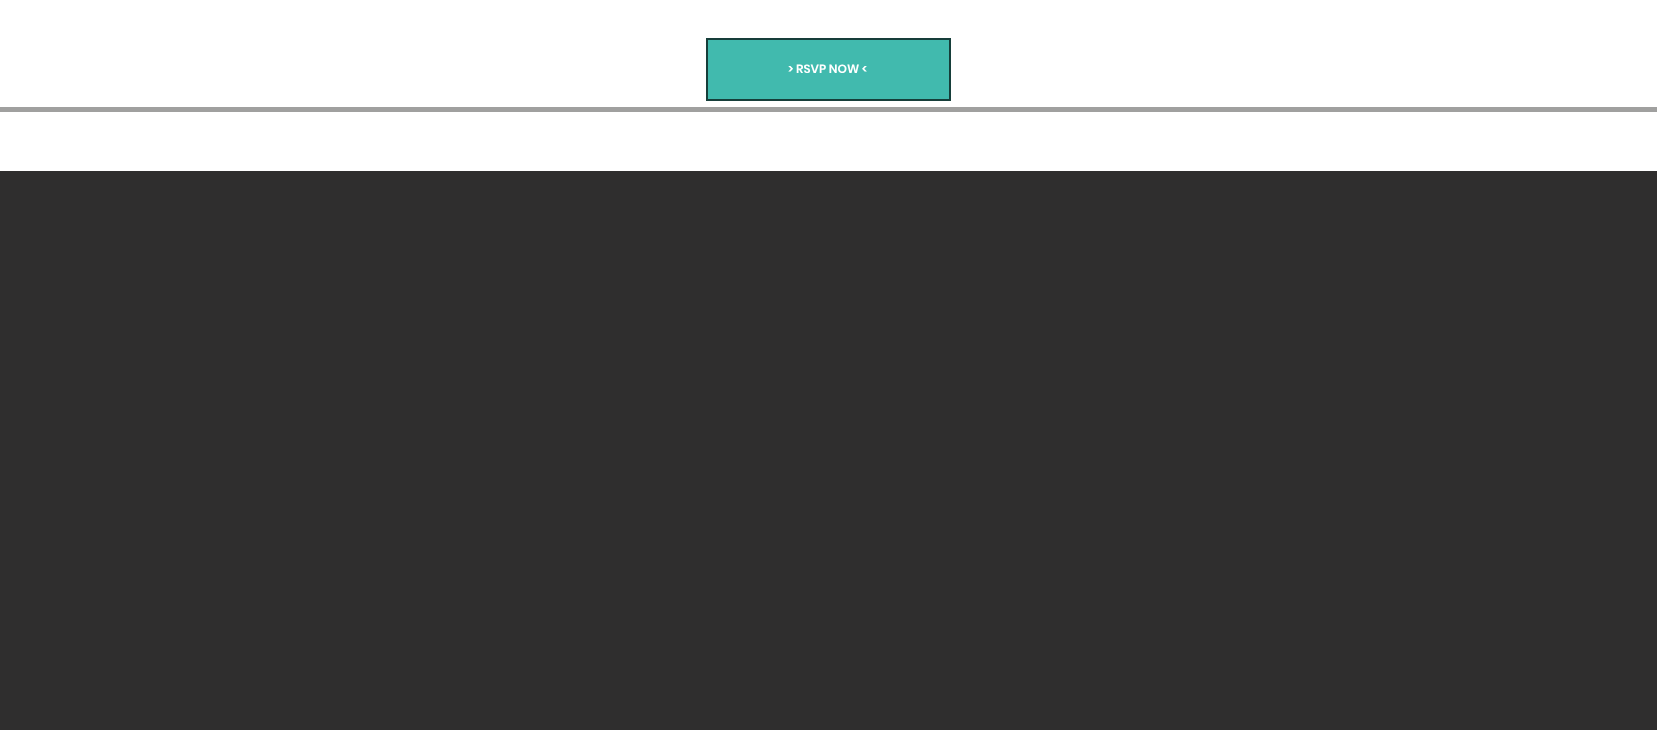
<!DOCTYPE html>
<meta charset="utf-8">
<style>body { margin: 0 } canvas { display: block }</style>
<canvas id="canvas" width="1657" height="730"></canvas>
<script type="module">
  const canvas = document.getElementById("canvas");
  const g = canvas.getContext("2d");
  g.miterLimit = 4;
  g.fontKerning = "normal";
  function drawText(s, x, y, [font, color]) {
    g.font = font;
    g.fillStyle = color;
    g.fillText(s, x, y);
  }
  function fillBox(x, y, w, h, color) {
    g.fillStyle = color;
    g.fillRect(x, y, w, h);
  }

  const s1 = ["600 12px Poppins", "#FFFFFF"];

  fillBox(0, 0, 1657, 730, "#FFFFFF");
  g.fillStyle = "#41BAAE";
  g.beginPath();
  g.rect(707, 39, 243, 61);
  g.fill();
  g.strokeStyle = "#163E3A";
  g.lineWidth = 2;
  g.stroke();
  drawText("> RSVP NOW <", 788, 73, s1);
  fillBox(0, 107, 1657, 5, "#A0A09F");
  fillBox(0, 171, 1657, 559, "#2F2E2E");
</script>
